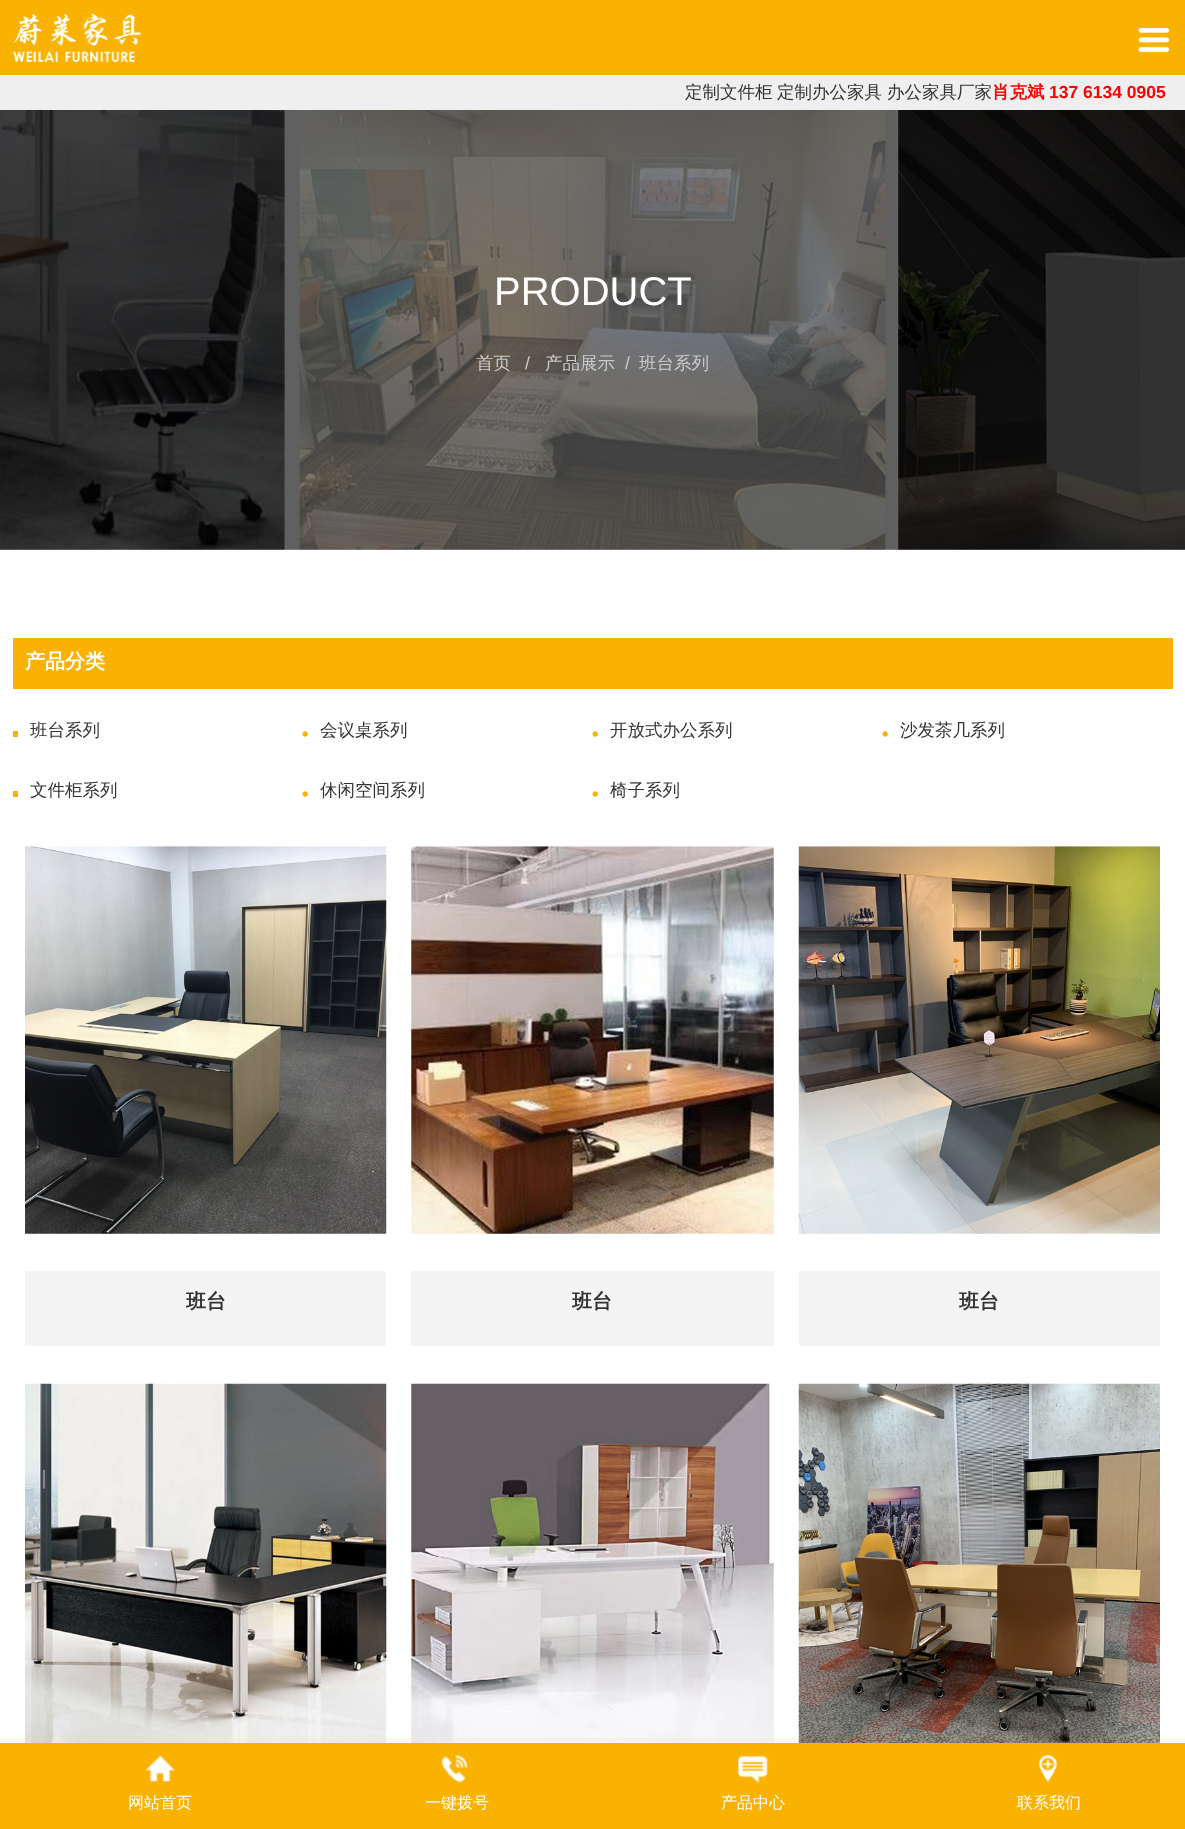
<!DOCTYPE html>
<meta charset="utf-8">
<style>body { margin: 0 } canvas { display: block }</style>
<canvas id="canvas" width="1185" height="1829"></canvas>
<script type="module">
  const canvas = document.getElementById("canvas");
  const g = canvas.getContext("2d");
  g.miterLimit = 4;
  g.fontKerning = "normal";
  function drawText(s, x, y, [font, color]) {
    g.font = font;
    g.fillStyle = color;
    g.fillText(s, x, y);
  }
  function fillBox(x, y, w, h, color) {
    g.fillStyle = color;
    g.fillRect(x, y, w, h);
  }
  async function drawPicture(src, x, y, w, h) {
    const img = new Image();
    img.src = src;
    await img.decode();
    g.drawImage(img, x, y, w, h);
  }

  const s1 = ["500 17.5px WenQuanYi Zen Hei", "#333333"];
  const s2 = ["bold 17.5px WenQuanYi Zen Hei", "#FF0000"];
  const s3 = ["bold 17.5px Liberation Sans", "#FF0000"];
  const s4 = ["40px Liberation Sans", "#FFFFFF"];
  const s5 = ["500 17.5px WenQuanYi Zen Hei", "#CCCCCC"];
  const s6 = ["17.5px Liberation Sans", "#CCCCCC"];
  const s7 = ["bold 20px WenQuanYi Zen Hei", "#FFFFFF"];
  const s8 = ["bold 20px WenQuanYi Zen Hei", "#333333"];
  const s9 = ["500 16px WenQuanYi Zen Hei", "#FFFFFF"];

  fillBox(0, 0, 1185, 1829, "#FFFFFF");
  fillBox(0, 0, 1185, 75, "#FAB200");
  await drawPicture("pic1.png", 13, 13, 129, 49);
  await drawPicture("pic2.png", 1138, 27, 32, 26);
  fillBox(0, 75, 1185, 35, "#EFEFEF");
  drawText("定制文件柜", 685, 98, s1);
  drawText("定制办公家具", 777, 98, s1);
  drawText("办公家具厂家", 887, 98, s1);
  drawText("肖克斌", 992, 98, s2);
  drawText("137 6134 0905", 1049, 98, s3);
  await drawPicture("pic3.png", 0, 110, 1185, 440);
  drawText("PRODUCT", 494, 305, s4);
  drawText("首页", 476, 369, s5);
  drawText("/", 525, 369, s6);
  drawText("产品展示", 545, 369, s5);
  drawText("/", 625, 369, s6);
  drawText("班台系列", 639, 369, s5);
  fillBox(13, 638, 1160, 51, "#FAB200");
  drawText("产品分类", 25, 668, s7);
  fillBox(13, 731, 5, 6, "#FAB200");
  drawText("班台系列", 30, 736, s1);
  await drawPicture("pic4.png", 302, 731, 6, 6);
  drawText("会议桌系列", 320, 736, s1);
  await drawPicture("pic4.png", 592, 731, 6, 6);
  drawText("开放式办公系列", 610, 736, s1);
  await drawPicture("pic4.png", 882, 731, 6, 6);
  drawText("沙发茶几系列", 900, 736, s1);
  fillBox(13, 791, 5, 6, "#FAB200");
  drawText("文件柜系列", 30, 796, s1);
  await drawPicture("pic4.png", 302, 791, 6, 6);
  drawText("休闲空间系列", 320, 796, s1);
  await drawPicture("pic4.png", 592, 791, 6, 6);
  drawText("椅子系列", 610, 796, s1);
  await drawPicture("pic5.png", 25, 846, 362, 388);
  fillBox(25, 1271, 361, 75, "#F4F4F4");
  drawText("班台", 186, 1308, s8);
  await drawPicture("pic6.png", 411, 846, 363, 388);
  fillBox(411, 1271, 363, 75, "#F4F4F4");
  drawText("班台", 572, 1308, s8);
  await drawPicture("pic7.png", 798, 846, 362, 388);
  fillBox(799, 1271, 361, 75, "#F4F4F4");
  drawText("班台", 959, 1308, s8);
  await drawPicture("pic8.png", 25, 1383, 362, 360);
  await drawPicture("pic9.png", 411, 1383, 363, 360);
  await drawPicture("pic10.png", 798, 1383, 362, 360);
  fillBox(0, 1743, 1185, 86, "#FAB200");
  await drawPicture("pic11.png", 145, 1755, 30, 28);
  drawText("网站首页", 128, 1808, s9);
  await drawPicture("pic12.png", 441, 1755, 27, 28);
  drawText("一键拨号", 425, 1808, s9);
  await drawPicture("pic13.png", 738, 1755, 31, 28);
  drawText("产品中心", 721, 1808, s9);
  await drawPicture("pic14.png", 1039, 1755, 19, 28);
  drawText("联系我们", 1017, 1808, s9);
</script>
